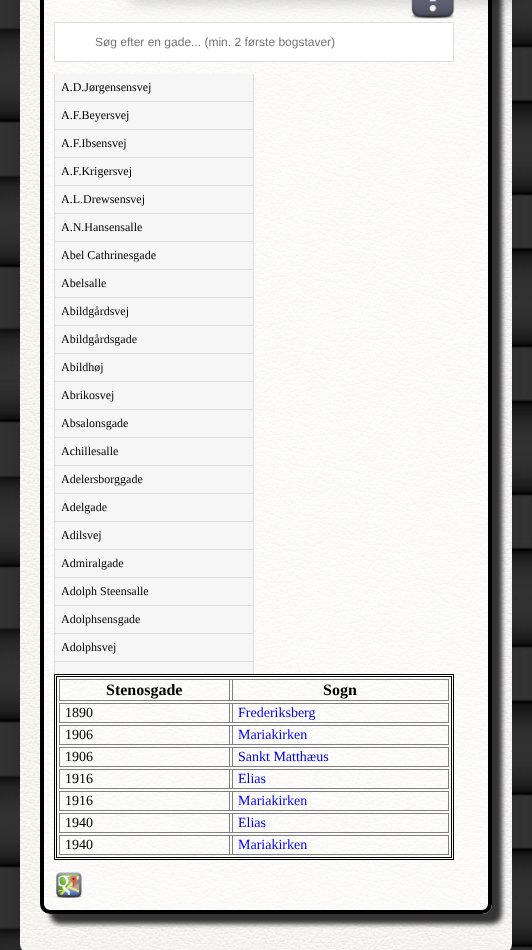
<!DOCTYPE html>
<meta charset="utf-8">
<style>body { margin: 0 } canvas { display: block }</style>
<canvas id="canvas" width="532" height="950"></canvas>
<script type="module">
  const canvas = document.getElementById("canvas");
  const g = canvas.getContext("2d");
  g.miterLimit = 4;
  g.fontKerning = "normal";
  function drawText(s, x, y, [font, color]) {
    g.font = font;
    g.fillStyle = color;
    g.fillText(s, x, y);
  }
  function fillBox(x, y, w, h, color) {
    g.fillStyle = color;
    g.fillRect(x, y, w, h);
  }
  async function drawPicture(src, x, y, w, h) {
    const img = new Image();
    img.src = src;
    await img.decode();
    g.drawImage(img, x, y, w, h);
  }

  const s1 = ["12px Liberation Sans", "#757575"];
  const s2 = ["12px Liberation Serif", "#000000"];
  const s3 = ["bold 16px Liberation Serif", "#000000"];
  const s4 = ["14px Liberation Serif", "#000000"];
  const s5 = ["14px Liberation Serif", "#0000EE"];

  fillBox(0, 0, 532, 950, "#FFFFFF");
  await drawPicture("pic1.png", 0, 0, 532, 950);
  await drawPicture("pic2.png", 20, 0, 492, 950);
  g.save();
  g.beginPath();
  g.moveTo(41, 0);
  g.lineTo(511, 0);
  g.lineTo(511, 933);
  g.lineTo(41, 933);
  g.closePath();
  g.moveTo(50, -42);
  g.lineTo(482, -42);
  g.bezierCurveTo(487.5, -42, 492, -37.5, 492, -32);
  g.lineTo(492, 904);
  g.bezierCurveTo(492, 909.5, 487.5, 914, 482, 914);
  g.lineTo(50, 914);
  g.bezierCurveTo(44.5, 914, 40, 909.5, 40, 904);
  g.lineTo(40, -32);
  g.bezierCurveTo(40, -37.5, 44.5, -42, 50, -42);
  g.closePath();
  g.clip("evenodd");
  g.fillStyle = "#333333";
  g.filter = "blur(2.5px)";
  g.beginPath();
  g.roundRect(50, -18, 452, 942, 10);
  g.fill();
  g.filter = "none";
  g.restore();
  g.fillStyle = "rgba(255, 255, 255, 0.6)";
  g.beginPath();
  g.roundRect(42, -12, 448, 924, 8);
  g.fill();
  g.strokeStyle = "#000000";
  g.lineWidth = 4;
  g.stroke();
  await drawPicture("pic3.png", 410, 0, 45, 19);
  g.fillStyle = "#FFFFFF";
  g.beginPath();
  g.rect(54.5, 22.5, 399, 39);
  g.fill();
  g.strokeStyle = "#DDDDDD";
  g.lineWidth = 1;
  g.stroke();
  g.fillStyle = "rgba(0, 0, 0, 0.2)";
  g.filter = "blur(8px)";
  g.beginPath();
  g.rect(130, -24, 392, 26);
  g.fill();
  g.filter = "none";
  drawText("Søg efter en gade... (min. 2 første bogstaver)", 95, 46, s1);
  fillBox(55, 74, 198, 27, "#F6F6F6");
  g.save();
  g.beginPath();
  g.rect(54, 74, 200, 600);
  g.clip();
  g.strokeRect(54.5, 73.5, 199, 28);
  g.restore();
  drawText("A.D.Jørgensensvej", 61, 91, s2);
  g.fillStyle = "#F6F6F6";
  g.beginPath();
  g.rect(54.5, 101.5, 199, 28);
  g.fill();
  g.stroke();
  drawText("A.F.Beyersvej", 61, 119, s2);
  g.fillStyle = "#F6F6F6";
  g.beginPath();
  g.rect(54.5, 129.5, 199, 28);
  g.fill();
  g.stroke();
  drawText("A.F.Ibsensvej", 61, 147, s2);
  g.fillStyle = "#F6F6F6";
  g.beginPath();
  g.rect(54.5, 157.5, 199, 28);
  g.fill();
  g.stroke();
  drawText("A.F.Krigersvej", 61, 175, s2);
  g.fillStyle = "#F6F6F6";
  g.beginPath();
  g.rect(54.5, 185.5, 199, 28);
  g.fill();
  g.stroke();
  drawText("A.L.Drewsensvej", 61, 203, s2);
  g.fillStyle = "#F6F6F6";
  g.beginPath();
  g.rect(54.5, 213.5, 199, 28);
  g.fill();
  g.stroke();
  drawText("A.N.Hansensalle", 61, 231, s2);
  g.fillStyle = "#F6F6F6";
  g.beginPath();
  g.rect(54.5, 241.5, 199, 28);
  g.fill();
  g.stroke();
  drawText("Abel Cathrinesgade", 61, 259, s2);
  g.fillStyle = "#F6F6F6";
  g.beginPath();
  g.rect(54.5, 269.5, 199, 28);
  g.fill();
  g.stroke();
  drawText("Abelsalle", 61, 287, s2);
  g.fillStyle = "#F6F6F6";
  g.beginPath();
  g.rect(54.5, 297.5, 199, 28);
  g.fill();
  g.stroke();
  drawText("Abildgårdsvej", 61, 315, s2);
  g.fillStyle = "#F6F6F6";
  g.beginPath();
  g.rect(54.5, 325.5, 199, 28);
  g.fill();
  g.stroke();
  drawText("Abildgårdsgade", 61, 343, s2);
  g.fillStyle = "#F6F6F6";
  g.beginPath();
  g.rect(54.5, 353.5, 199, 28);
  g.fill();
  g.stroke();
  drawText("Abildhøj", 61, 371, s2);
  g.fillStyle = "#F6F6F6";
  g.beginPath();
  g.rect(54.5, 381.5, 199, 28);
  g.fill();
  g.stroke();
  drawText("Abrikosvej", 61, 399, s2);
  g.fillStyle = "#F6F6F6";
  g.beginPath();
  g.rect(54.5, 409.5, 199, 28);
  g.fill();
  g.stroke();
  drawText("Absalonsgade", 61, 427, s2);
  g.fillStyle = "#F6F6F6";
  g.beginPath();
  g.rect(54.5, 437.5, 199, 28);
  g.fill();
  g.stroke();
  drawText("Achillesalle", 61, 455, s2);
  g.fillStyle = "#F6F6F6";
  g.beginPath();
  g.rect(54.5, 465.5, 199, 28);
  g.fill();
  g.stroke();
  drawText("Adelersborggade", 61, 483, s2);
  g.fillStyle = "#F6F6F6";
  g.beginPath();
  g.rect(54.5, 493.5, 199, 28);
  g.fill();
  g.stroke();
  drawText("Adelgade", 61, 511, s2);
  g.fillStyle = "#F6F6F6";
  g.beginPath();
  g.rect(54.5, 521.5, 199, 28);
  g.fill();
  g.stroke();
  drawText("Adilsvej", 61, 539, s2);
  g.fillStyle = "#F6F6F6";
  g.beginPath();
  g.rect(54.5, 549.5, 199, 28);
  g.fill();
  g.stroke();
  drawText("Admiralgade", 61, 567, s2);
  g.fillStyle = "#F6F6F6";
  g.beginPath();
  g.rect(54.5, 577.5, 199, 28);
  g.fill();
  g.stroke();
  drawText("Adolph Steensalle", 61, 595, s2);
  g.fillStyle = "#F6F6F6";
  g.beginPath();
  g.rect(54.5, 605.5, 199, 28);
  g.fill();
  g.stroke();
  drawText("Adolphsensgade", 61, 623, s2);
  g.fillStyle = "#F6F6F6";
  g.beginPath();
  g.rect(54.5, 633.5, 199, 28);
  g.fill();
  g.stroke();
  drawText("Adolphsvej", 61, 651, s2);
  fillBox(55, 662, 198, 12, "#F6F6F6");
  g.strokeStyle = "#000000";
  g.strokeRect(54.5, 674.5, 399, 185);
  g.strokeRect(56.5, 676.5, 395, 181);
  g.strokeStyle = "#808080";
  g.strokeRect(59.5, 679.5, 389, 21);
  g.strokeRect(59.5, 679.5, 170, 21);
  drawText("Stenosgade", 106, 695, s3);
  g.strokeRect(232.5, 679.5, 216, 21);
  g.save();
  g.beginPath();
  g.rect(54, 74, 200, 600);
  g.clip();
  g.strokeStyle = "#DDDDDD";
  g.strokeRect(54.5, 661.5, 199, 28);
  g.restore();
  drawText("Sogn", 323, 695, s3);
  g.strokeRect(59.5, 703.5, 389, 19);
  g.strokeRect(59.5, 703.5, 170, 19);
  drawText("1890", 65, 717, s4);
  g.strokeRect(232.5, 703.5, 216, 19);
  drawText("Frederiksberg", 238, 717, s5);
  g.strokeRect(59.5, 725.5, 389, 19);
  g.strokeRect(59.5, 725.5, 170, 19);
  drawText("1906", 65, 739, s4);
  g.strokeRect(232.5, 725.5, 216, 19);
  drawText("Mariakirken", 238, 739, s5);
  g.strokeRect(59.5, 747.5, 389, 19);
  g.strokeRect(59.5, 747.5, 170, 19);
  drawText("1906", 65, 761, s4);
  g.strokeRect(232.5, 747.5, 216, 19);
  drawText("Sankt Matthæus", 238, 761, s5);
  g.strokeRect(59.5, 769.5, 389, 19);
  g.strokeRect(59.5, 769.5, 170, 19);
  drawText("1916", 65, 783, s4);
  g.strokeRect(232.5, 769.5, 216, 19);
  drawText("Elias", 238, 783, s5);
  g.strokeRect(59.5, 791.5, 389, 19);
  g.strokeRect(59.5, 791.5, 170, 19);
  drawText("1916", 65, 805, s4);
  g.strokeRect(232.5, 791.5, 216, 19);
  drawText("Mariakirken", 238, 805, s5);
  g.strokeRect(59.5, 813.5, 389, 19);
  g.strokeRect(59.5, 813.5, 170, 19);
  drawText("1940", 65, 827, s4);
  g.strokeRect(232.5, 813.5, 216, 19);
  drawText("Elias", 238, 827, s5);
  g.strokeRect(59.5, 835.5, 389, 19);
  g.strokeRect(59.5, 835.5, 170, 19);
  drawText("1940", 65, 849, s4);
  g.strokeRect(232.5, 835.5, 216, 19);
  drawText("Mariakirken", 238, 849, s5);
  await drawPicture("pic4.png", 55, 872, 28, 26);
</script>
